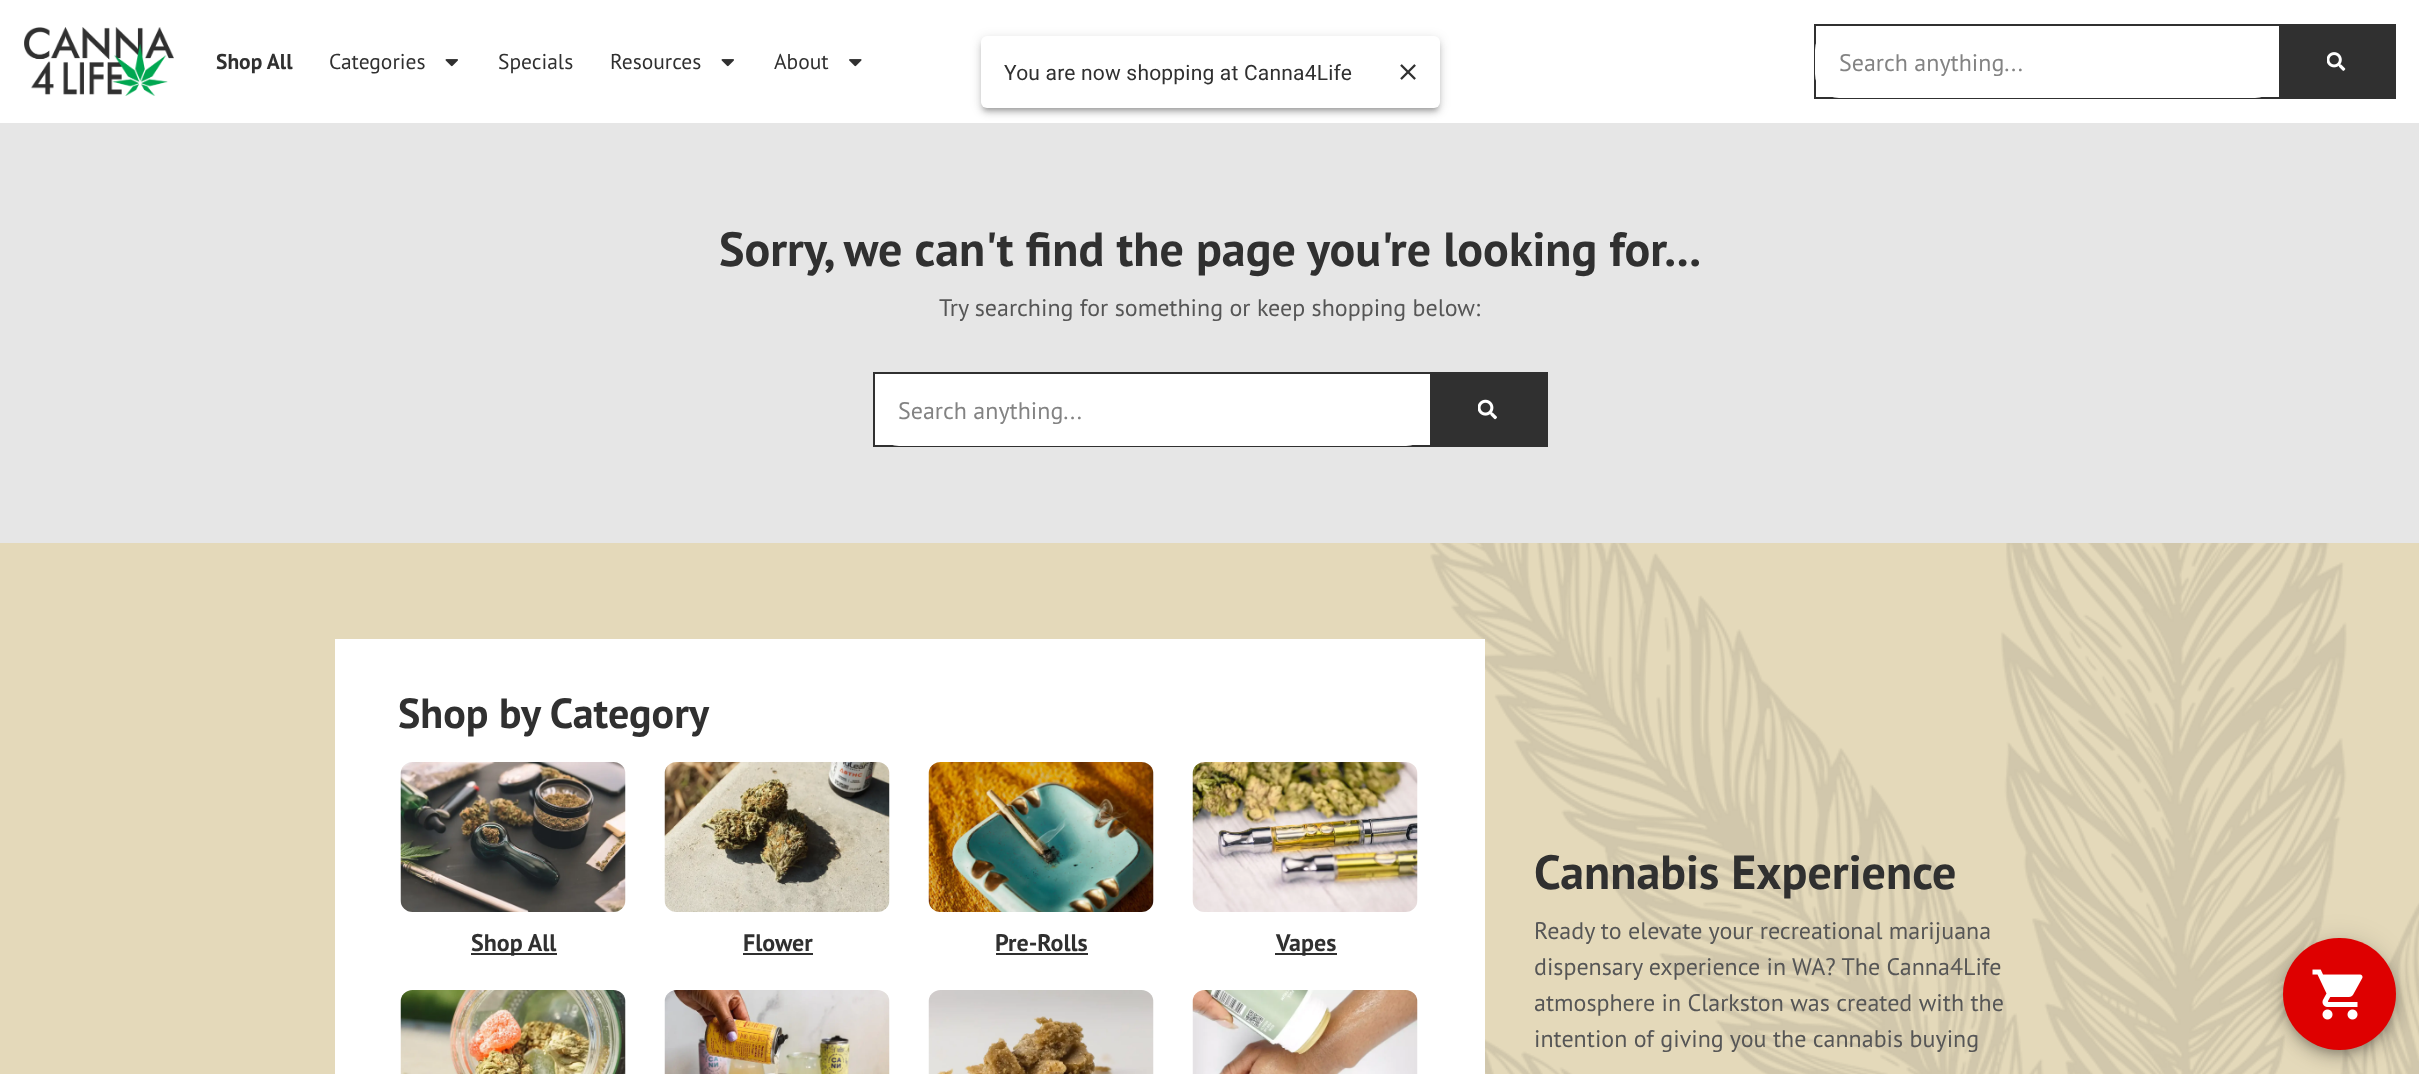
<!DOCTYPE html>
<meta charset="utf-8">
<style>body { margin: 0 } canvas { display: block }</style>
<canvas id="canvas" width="2419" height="1074"></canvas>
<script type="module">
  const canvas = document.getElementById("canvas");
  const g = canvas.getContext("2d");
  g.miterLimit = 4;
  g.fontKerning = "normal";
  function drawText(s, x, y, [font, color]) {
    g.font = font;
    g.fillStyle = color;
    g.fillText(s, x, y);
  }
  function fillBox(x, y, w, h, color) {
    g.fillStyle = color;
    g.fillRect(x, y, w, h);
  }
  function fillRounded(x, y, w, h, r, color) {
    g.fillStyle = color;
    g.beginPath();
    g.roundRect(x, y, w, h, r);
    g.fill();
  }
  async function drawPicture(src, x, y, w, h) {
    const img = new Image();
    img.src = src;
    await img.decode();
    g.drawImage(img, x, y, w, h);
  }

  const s1 = ["bold 21.5px PT Sans", "#303030"];
  const s2 = ["21.5px PT Sans", "#303030"];
  const s3 = ["24px PT Sans", "#838383"];
  const s4 = ["21px Roboto", "#303030"];
  const s5 = ["bold 48px PT Sans", "#303030"];
  const s6 = ["24px PT Sans", "#565656"];
  const s7 = ["bold 42px PT Sans", "#303030"];
  const s8 = ["bold 24px PT Sans", "#303030"];

  fillBox(0, 0, 2419, 1074, "#FFFFFF");
  await drawPicture("pic1.png", 24, 27, 150, 69);
  drawText("Shop All", 216, 69, s1);
  drawText("Categories", 329, 69, s2);
  await drawPicture("pic2.png", 445, 59, 13, 8);
  drawText("Specials", 498, 69, s2);
  drawText("Resources", 610, 69, s2);
  await drawPicture("pic2.png", 721, 59, 13, 8);
  drawText("About", 774, 69, s2);
  await drawPicture("pic3.png", 849, 59, 13, 8);
  g.strokeStyle = "#303030";
  g.lineWidth = 2;
  g.strokeRect(1815, 25, 580, 73);
  fillRounded(1815, 26, 464, 72, 24, "#FFFFFF");
  drawText("Search anything...", 1839, 71, s3);
  fillBox(2279, 26, 115, 71, "#303030");
  await drawPicture("pic4.png", 2327, 52, 19, 19);
  fillBox(0, 123, 2419, 420, "#E6E6E6");
  g.fillStyle = "rgba(0, 0, 0, 0.12)";
  g.filter = "blur(6px)";
  g.beginPath();
  g.roundRect(981, 38, 459, 72, 6);
  g.fill();
  g.filter = "none";
  g.fillStyle = "rgba(0, 0, 0, 0.14)";
  g.filter = "blur(3px)";
  g.beginPath();
  g.roundRect(981, 41, 459, 72, 6);
  g.fill();
  g.filter = "none";
  g.fillStyle = "rgba(0, 0, 0, 0.2)";
  g.filter = "blur(2px)";
  g.beginPath();
  g.roundRect(984, 44, 453, 66, 3);
  g.fill();
  g.filter = "none";
  fillRounded(981, 36, 459, 72, 6, "#FFFFFF");
  g.letterSpacing = "0.2px";
  drawText("You are now shopping at Canna4Life", 1004, 80, s4);
  await drawPicture("pic5.png", 1400, 64, 16, 16);
  fillBox(0, 543, 2419, 531, "#E4D9BA");
  await drawPicture("pic8.png", 1430, 543, 989, 531);
  g.fillStyle = "rgba(0, 0, 0, 0.12)";
  g.filter = "blur(13.5px)";
  g.beginPath();
  g.roundRect(2283, 939, 113, 113, 56.5);
  g.fill();
  g.filter = "none";
  g.fillStyle = "rgba(0, 0, 0, 0.14)";
  g.filter = "blur(7.5px)";
  g.beginPath();
  g.roundRect(2283, 947, 113, 112, 56);
  g.fill();
  g.filter = "none";
  g.fillStyle = "rgba(0, 0, 0, 0.2)";
  g.filter = "blur(4px)";
  g.beginPath();
  g.roundRect(2285, 944, 109, 109, 54.5);
  g.fill();
  g.filter = "none";
  fillRounded(2283, 938, 113, 112, 56, "#DE0000");
  await drawPicture("pic6.png", 2312, 969, 51, 51);
  g.letterSpacing = "0px";
  drawText("Sorry, we can't find the page you're looking for...", 719, 266, s5);
  drawText("Try searching for something or keep shopping below:", 939, 316, s6);
  fillBox(875, 374, 555, 71, "#FFFFFF");
  g.strokeRect(874, 373, 673, 73);
  fillRounded(875, 374, 555, 72, 24, "#FFFFFF");
  drawText("Search anything...", 898, 419, s3);
  fillBox(1430, 374, 116, 71, "#303030");
  await drawPicture("pic7.png", 1478, 399, 19, 21);
  fillBox(335, 639, 1150, 435, "#FFFFFF");
  drawText("Shop by Category", 398, 728, s7);
  await drawPicture("pic9.png", 400, 762, 226, 150);
  fillBox(471, 953, 86, 2, "#303030");
  drawText("Shop All", 471, 951, s8);
  await drawPicture("pic10.png", 664, 762, 226, 150);
  drawText("Flower", 743, 951, s8);
  fillBox(743, 953, 70, 2, "#303030");
  await drawPicture("pic11.png", 928, 762, 226, 150);
  drawText("Pre-Rolls", 995, 951, s8);
  fillBox(996, 953, 92, 2, "#303030");
  await drawPicture("pic12.png", 1192, 762, 226, 150);
  fillBox(1275, 953, 62, 2, "#303030");
  drawText("Vapes", 1276, 951, s8);
  await drawPicture("pic13.png", 400, 990, 226, 84);
  await drawPicture("pic14.png", 664, 990, 226, 84);
  await drawPicture("pic15.png", 928, 990, 226, 84);
  await drawPicture("pic16.png", 1192, 990, 226, 84);
  drawText("Cannabis Experience", 1534, 889, s5);
  drawText("Ready to elevate your recreational marijuana", 1534, 939, s6);
  drawText("dispensary experience in WA? The Canna4Life", 1534, 975, s6);
  drawText("atmosphere in Clarkston was created with the", 1534, 1011, s6);
  drawText("intention of giving you the cannabis buying", 1534, 1047, s6);
</script>
